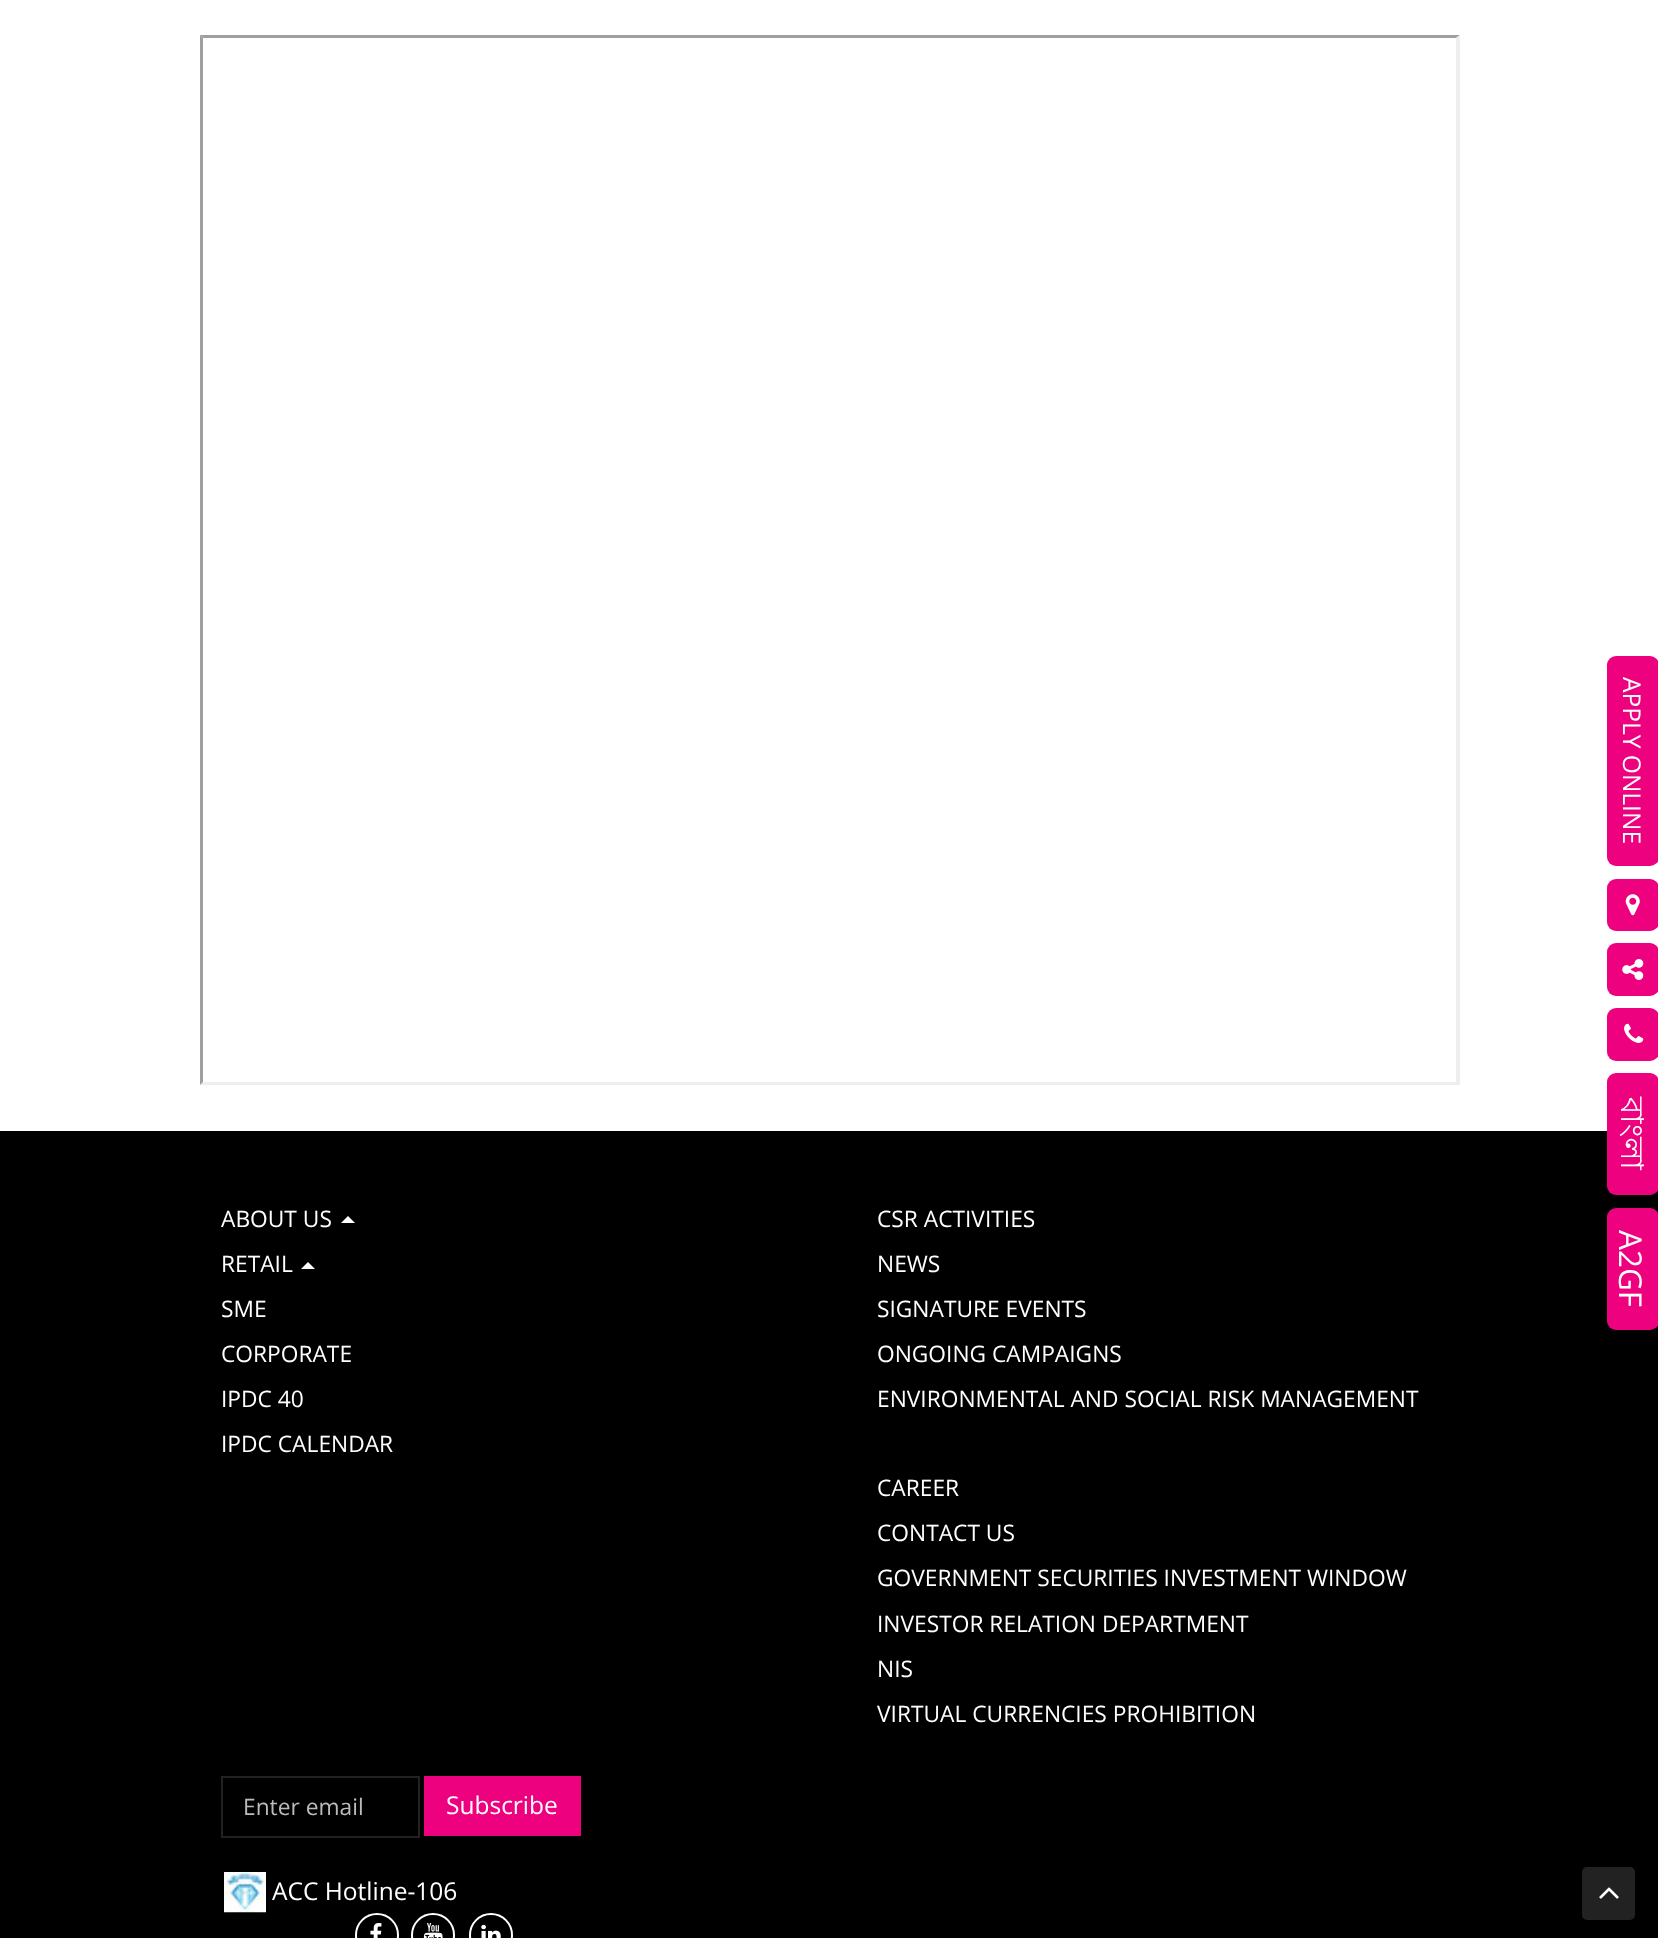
<!DOCTYPE html>
<meta charset="utf-8">
<style>body { margin: 0 } canvas { display: block }</style>
<canvas id="canvas" width="1658" height="1938"></canvas>
<script type="module">
  const canvas = document.getElementById("canvas");
  const g = canvas.getContext("2d");
  g.miterLimit = 4;
  g.fontKerning = "normal";
  function drawText(s, x, y, [font, color]) {
    g.font = font;
    g.fillStyle = color;
    g.fillText(s, x, y);
  }
  function fillBox(x, y, w, h, color) {
    g.fillStyle = color;
    g.fillRect(x, y, w, h);
  }
  function fillRounded(x, y, w, h, r, color) {
    g.fillStyle = color;
    g.beginPath();
    g.roundRect(x, y, w, h, r);
    g.fill();
  }
  async function drawPicture(src, x, y, w, h) {
    const img = new Image();
    img.src = src;
    await img.decode();
    g.drawImage(img, x, y, w, h);
  }

  const s1 = ["22.75px Open Sans", "#FFFFFF"];
  const s2 = ["22.75px Open Sans", "#BBBBBB"];
  const s3 = ["24.5px Open Sans", "#FFFFFF"];

  fillBox(0, 0, 1658, 1938, "#FFFFFF");
  g.fillStyle = "#9F9F9F";
  g.beginPath();
  g.moveTo(200, 35);
  g.lineTo(1460, 35);
  g.lineTo(1456, 38);
  g.lineTo(203, 38);
  g.closePath();
  g.fill();
  g.fillStyle = "#EEEEEE";
  g.beginPath();
  g.moveTo(1460, 35);
  g.lineTo(1460, 1085);
  g.lineTo(1456, 1082);
  g.lineTo(1456, 38);
  g.closePath();
  g.fill();
  g.beginPath();
  g.moveTo(1460, 1085);
  g.lineTo(200, 1085);
  g.lineTo(203, 1082);
  g.lineTo(1456, 1082);
  g.closePath();
  g.fill();
  g.fillStyle = "#9F9F9F";
  g.beginPath();
  g.moveTo(200, 1085);
  g.lineTo(200, 35);
  g.lineTo(203, 38);
  g.lineTo(203, 1082);
  g.closePath();
  g.fill();
  fillRounded(1607, 656, 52, 210, 9, "#ED017F");
  g.font = "24.5px Open Sans";
  g.fillStyle = "#FFFFFF";
  g.save();
  g.translate(1623, 677);
  g.rotate(90 * Math.PI / 180);
  g.fillText("APPLY ONLINE", 0, 0);
  g.restore();
  fillRounded(1607, 879, 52, 52, 9, "#ED017F");
  await drawPicture("pic1.png", 1625, 894, 15, 22);
  fillRounded(1607, 943, 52, 53, 9, "#ED017F");
  await drawPicture("pic2.png", 1622, 959, 22, 21);
  fillRounded(1607, 1008, 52, 53, 9, "#ED017F");
  await drawPicture("pic3.png", 1624, 1023, 20, 20);
  fillBox(0, 1131, 1658, 807, "#000000");
  fillRounded(1607, 1073, 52, 122, 9, "#ED017F");
  g.font = "31.5px Lohit Bengali";
  g.fillStyle = "#FFFFFF";
  g.save();
  g.translate(1621, 1097);
  g.rotate(90 * Math.PI / 180);
  g.fillText("বাংলা", 0, 0);
  g.restore();
  fillRounded(1607, 1208, 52, 122, 9, "#ED017F");
  g.font = "31.5px Open Sans";
  g.fillStyle = "#FFFFFF";
  g.save();
  g.translate(1619, 1230);
  g.rotate(90 * Math.PI / 180);
  g.fillText("A2GF", 0, 0);
  g.restore();
  drawText("ABOUT US", 221, 1227, s1);
  g.beginPath();
  g.moveTo(355, 1223);
  g.lineTo(341, 1223);
  g.lineTo(348, 1216);
  g.closePath();
  g.fill();
  drawText("RETAIL", 221, 1272, s1);
  g.beginPath();
  g.moveTo(315, 1269);
  g.lineTo(301, 1269);
  g.lineTo(308, 1262);
  g.closePath();
  g.fill();
  drawText("SME", 221, 1317, s1);
  drawText("CORPORATE", 221, 1362, s1);
  drawText("IPDC 40", 221, 1407, s1);
  drawText("IPDC CALENDAR", 221, 1452, s1);
  drawText("CSR ACTIVITIES", 877, 1227, s1);
  drawText("NEWS", 877, 1272, s1);
  drawText("SIGNATURE EVENTS", 877, 1317, s1);
  drawText("ONGOING CAMPAIGNS", 877, 1362, s1);
  drawText("ENVIRONMENTAL AND SOCIAL RISK MANAGEMENT", 877, 1407, s1);
  drawText("CAREER", 877, 1496, s1);
  drawText("CONTACT US", 877, 1541, s1);
  drawText("GOVERNMENT SECURITIES INVESTMENT WINDOW", 877, 1586, s1);
  drawText("INVESTOR RELATION DEPARTMENT", 877, 1632, s1);
  drawText("NIS", 877, 1677, s1);
  drawText("VIRTUAL CURRENCIES PROHIBITION", 877, 1722, s1);
  g.strokeStyle = "#222222";
  g.lineWidth = 2;
  g.strokeRect(222, 1777, 197, 60);
  drawText("Enter email", 243, 1815, s2);
  fillBox(424, 1776, 157, 60, "#ED017F");
  drawText("Subscribe", 446, 1814, s3);
  await drawPicture("pic4.png", 224, 1872, 42, 41);
  drawText("ACC Hotline-106", 272, 1900, s3);
  g.beginPath();
  g.arc(377, 1935, 21, 0, Math.PI * 2);
  g.strokeStyle = "#FFFFFF";
  g.stroke();
  await drawPicture("pic5.png", 370, 1923, 12, 15);
  g.beginPath();
  g.arc(433, 1935, 21, 0, Math.PI * 2);
  g.stroke();
  await drawPicture("pic6.png", 423, 1923, 20, 15);
  g.beginPath();
  g.arc(491, 1935, 21, 0, Math.PI * 2);
  g.stroke();
  await drawPicture("pic7.png", 481, 1924, 20, 14);
  fillRounded(1582, 1867, 53, 53, 5, "#222222");
  await drawPicture("pic8.png", 1599, 1887, 20, 12);
</script>
